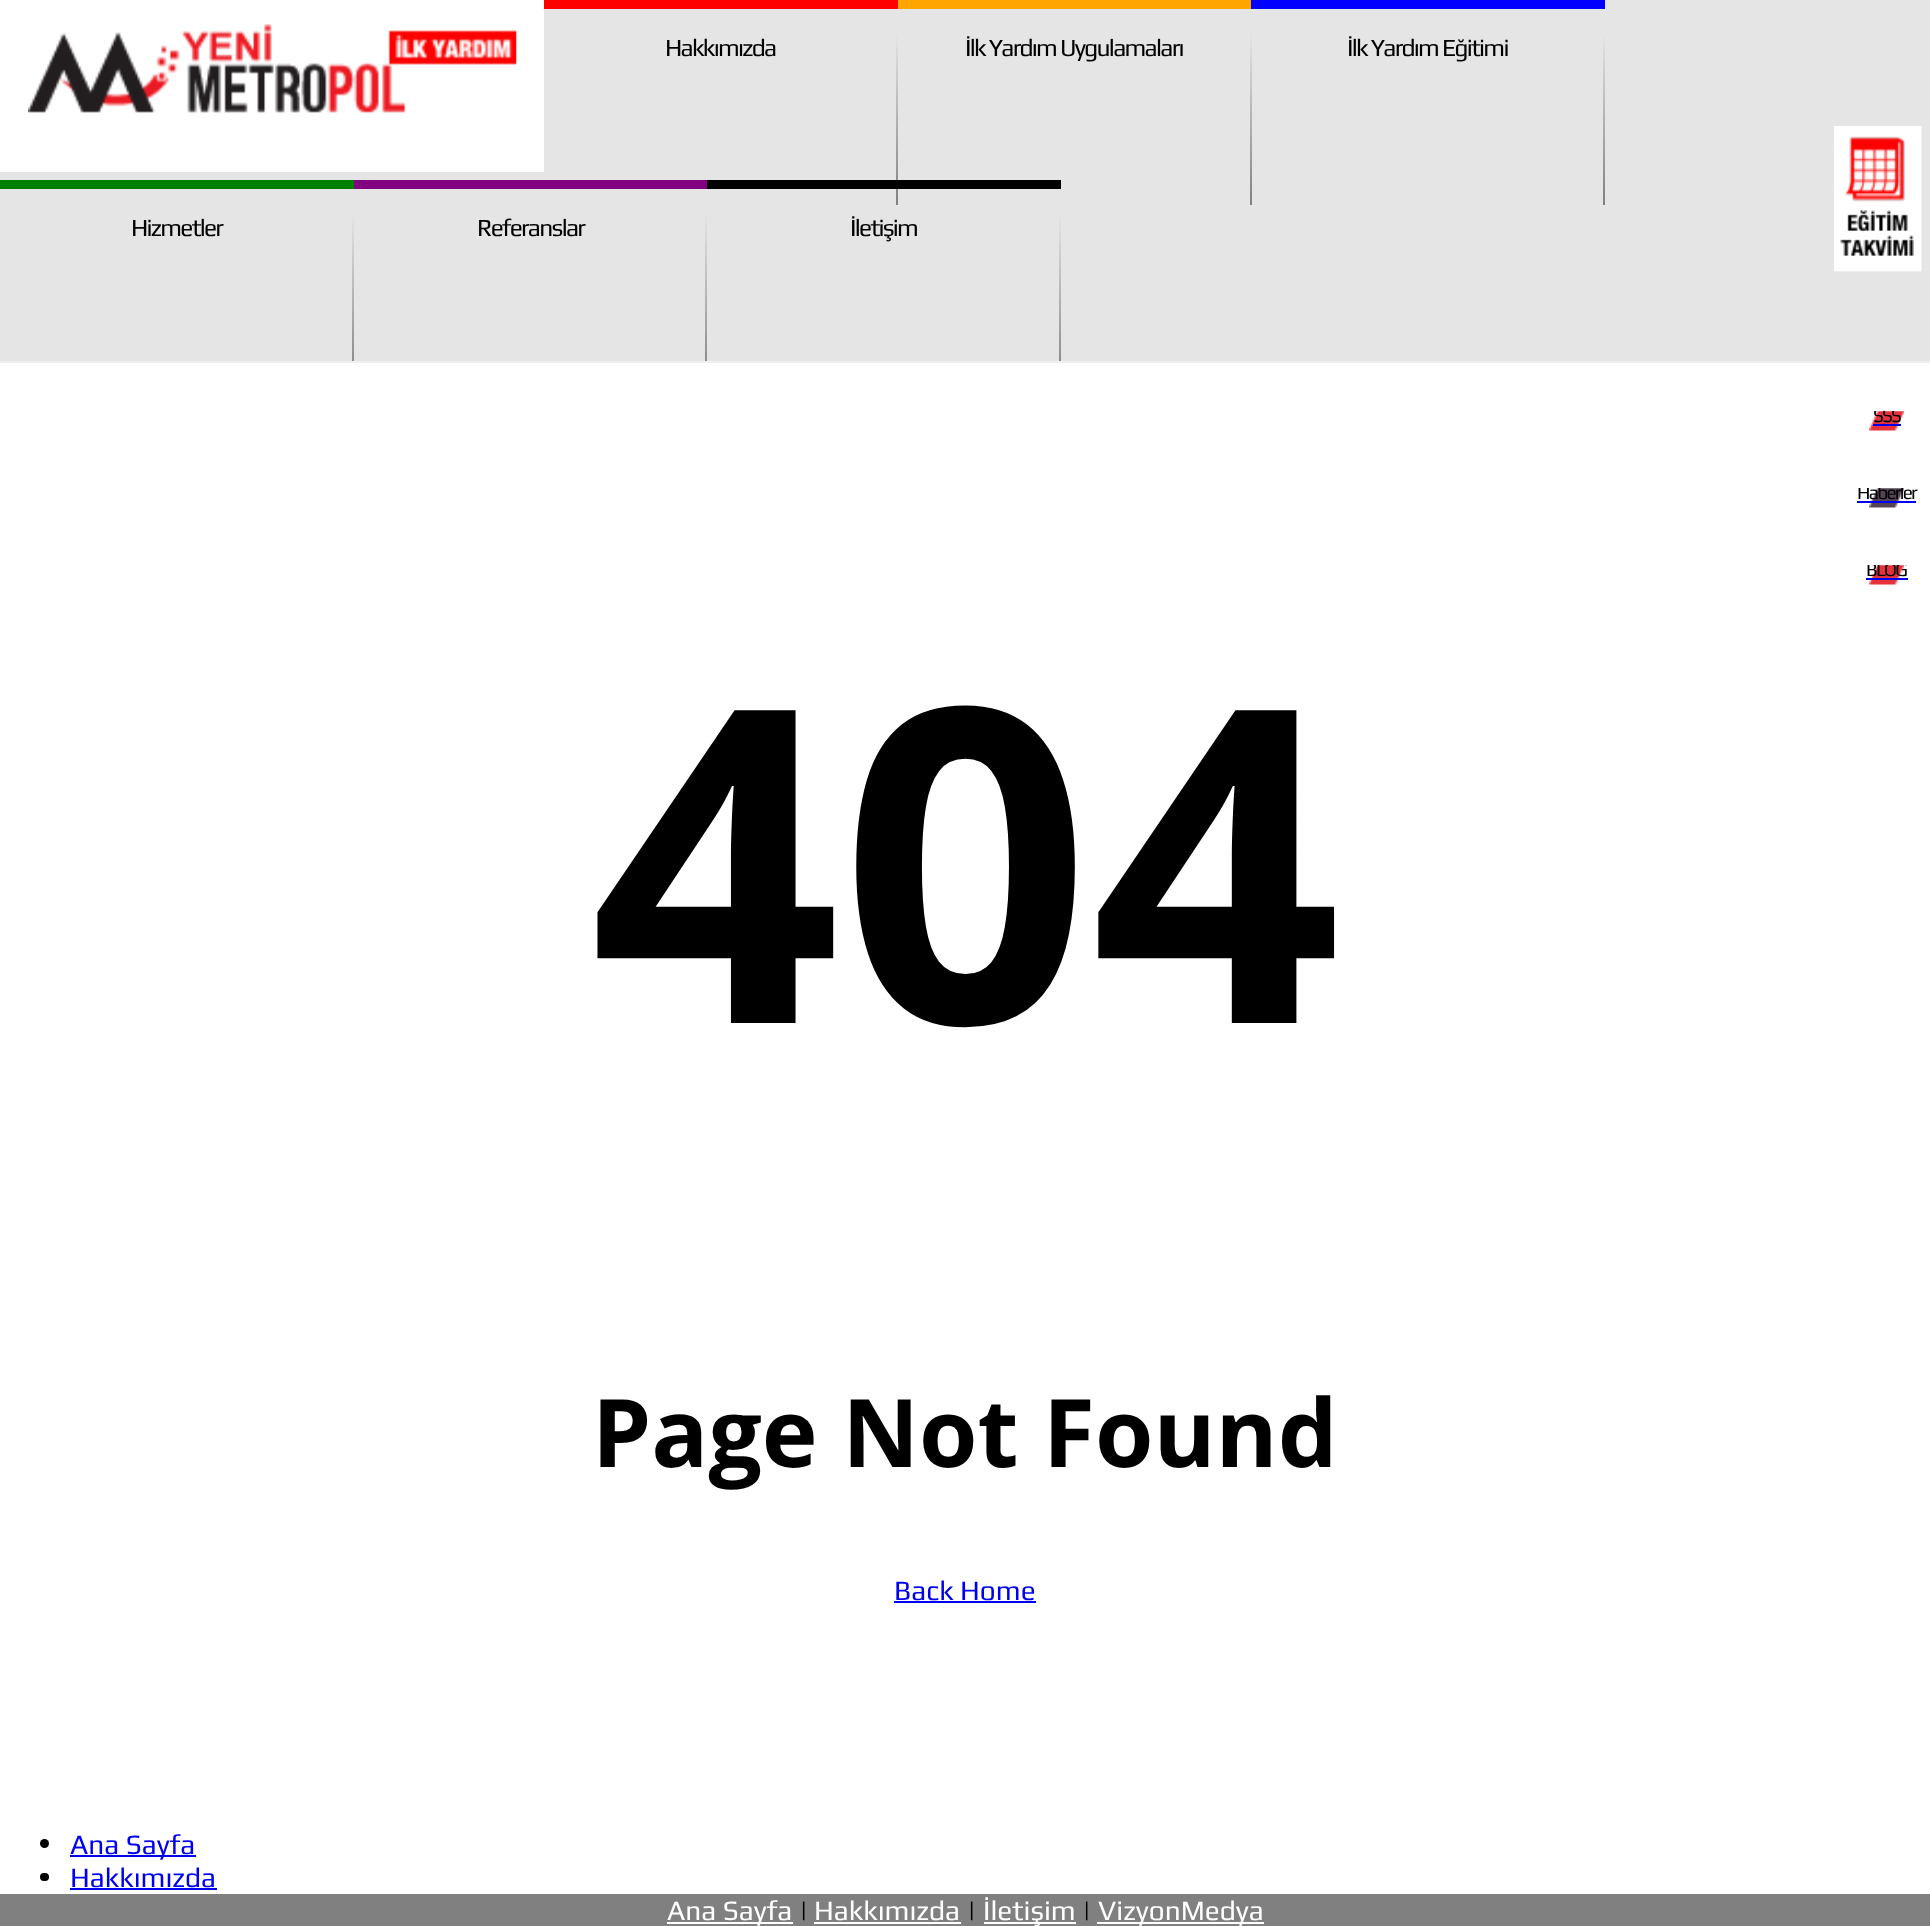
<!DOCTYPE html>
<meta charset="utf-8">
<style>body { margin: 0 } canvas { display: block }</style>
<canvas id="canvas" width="1930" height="1926"></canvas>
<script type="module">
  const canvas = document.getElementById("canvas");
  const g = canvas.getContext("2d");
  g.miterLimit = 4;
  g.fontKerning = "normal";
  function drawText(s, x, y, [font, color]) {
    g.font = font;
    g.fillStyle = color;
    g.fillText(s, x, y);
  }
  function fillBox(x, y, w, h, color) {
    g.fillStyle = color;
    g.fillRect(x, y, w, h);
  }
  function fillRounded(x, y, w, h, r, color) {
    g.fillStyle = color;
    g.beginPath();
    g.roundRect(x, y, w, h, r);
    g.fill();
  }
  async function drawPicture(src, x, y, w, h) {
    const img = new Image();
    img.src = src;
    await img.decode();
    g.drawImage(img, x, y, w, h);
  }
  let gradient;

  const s1 = ["24.5px Play", "#000000"];
  const s2 = ["19px Play", "#000000"];
  const s3 = ["bold 438px Open Sans", "#000000"];
  const s4 = ["bold 94.5px Open Sans", "#000000"];
  const s5 = ["28px Play", "#0000EE"];
  const s6 = ["28px Play", "#FFFFFF"];
  const s7 = ["28px Play", "#000000"];

  fillBox(0, 0, 1930, 1926, "#FFFFFF");
  fillBox(0, 0, 1930, 361, "#E5E5E5");
  fillBox(0, 361, 1930, 2, "#F0F0F0");
  fillBox(0, 0, 544, 172, "#FFFFFF");
  await drawPicture("pic1.png", 28, 24, 489, 89);
  fillBox(544, 0, 354, 9, "#FF0000");
  g.letterSpacing = "-1.75px";
  drawText("Hakkımızda", 665, 56, s1);
  gradient = g.createLinearGradient(897, 205, 897, 33);
  gradient.addColorStop(0, "#808080");
  gradient.addColorStop(1, "#E5E5E5");
  g.fillStyle = gradient;
  g.fillRect(896, 33, 2, 172);
  fillBox(898, 0, 353, 9, "#FFA500");
  drawText("İlk Yardım Uygulamaları", 965, 56, s1);
  gradient = g.createLinearGradient(1250, 205, 1250, 33);
  gradient.addColorStop(0, "#808080");
  gradient.addColorStop(1, "#E5E5E5");
  g.fillStyle = gradient;
  g.fillRect(1250, 33, 2, 172);
  fillBox(1251, 0, 354, 9, "#0000FF");
  drawText("İlk Yardım Eğitimi", 1347, 56, s1);
  gradient = g.createLinearGradient(1604, 205, 1604, 33);
  gradient.addColorStop(0, "#808080");
  gradient.addColorStop(1, "#E5E5E5");
  g.fillStyle = gradient;
  g.fillRect(1603, 33, 2, 172);
  fillBox(0, 180, 354, 9, "#008000");
  drawText("Hizmetler", 131, 236, s1);
  gradient = g.createLinearGradient(353, 385, 353, 214);
  gradient.addColorStop(0, "#808080");
  gradient.addColorStop(1, "#E5E5E5");
  g.fillStyle = gradient;
  g.fillRect(352, 214, 2, 147);
  fillBox(354, 180, 353, 9, "#800080");
  drawText("Referanslar", 477, 236, s1);
  gradient = g.createLinearGradient(706, 385, 706, 214);
  gradient.addColorStop(0, "#808080");
  gradient.addColorStop(1, "#E5E5E5");
  g.fillStyle = gradient;
  g.fillRect(705, 214, 2, 147);
  fillBox(707, 180, 354, 9, "#000000");
  drawText("İletişim", 850, 236, s1);
  gradient = g.createLinearGradient(1060, 385, 1060, 214);
  gradient.addColorStop(0, "#808080");
  gradient.addColorStop(1, "#E5E5E5");
  g.fillStyle = gradient;
  g.fillRect(1059, 214, 2, 147);
  await drawPicture("pic2.png", 1834, 126, 88, 146);
  await drawPicture("pic3.png", 1869, 411, 35, 20);
  g.save();
  g.beginPath();
  g.rect(1843, 411, 87, 70);
  g.clip();
  drawText("SSS", 1873, 422, s2);
  g.restore();
  fillBox(1873, 424, 28, 2, "#0000EE");
  await drawPicture("pic4.png", 1869, 488, 35, 20);
  g.save();
  g.beginPath();
  g.rect(1843, 488, 87, 70);
  g.clip();
  drawText("Haberler", 1857, 499, s2);
  g.restore();
  fillBox(1857, 501, 59, 2, "#0000EE");
  await drawPicture("pic3.png", 1869, 565, 35, 20);
  g.save();
  g.beginPath();
  g.rect(1843, 565, 87, 70);
  g.clip();
  drawText("BLOG", 1866, 576, s2);
  g.restore();
  fillBox(1866, 578, 42, 2, "#0000EE");
  g.letterSpacing = "0px";
  drawText("404", 590, 1023, s3);
  drawText("Page Not Found", 592, 1467, s4);
  drawText("Back Home", 894, 1600, s5);
  fillBox(894, 1601, 142, 2, "#0000EE");
  g.fillStyle = "#000000";
  g.beginPath();
  g.arc(44.5, 1843.5, 4.5, 0, Math.PI * 2);
  g.fill();
  fillBox(70, 1855, 126, 2, "#0000EE");
  drawText("Ana Sayfa", 70, 1854, s5);
  fillRounded(40, 1873, 9, 8, 4, "#000000");
  drawText("Hakkımızda", 70, 1887, s5);
  fillBox(70, 1888, 147, 2, "#0000EE");
  fillBox(0, 1894, 1930, 32, "#808080");
  fillBox(667, 1922, 126, 2, "#FFFFFF");
  drawText("Ana Sayfa", 667, 1920, s6);
  drawText("|", 799, 1920, s7);
  drawText("Hakkımızda", 814, 1920, s6);
  fillBox(814, 1922, 147, 2, "#FFFFFF");
  drawText("|", 967, 1920, s7);
  fillBox(984, 1922, 92, 2, "#FFFFFF");
  drawText("İletişim", 983, 1920, s6);
  drawText("|", 1082, 1920, s7);
  fillBox(1097, 1922, 167, 2, "#FFFFFF");
  drawText("VizyonMedya", 1098, 1920, s6);
</script>
